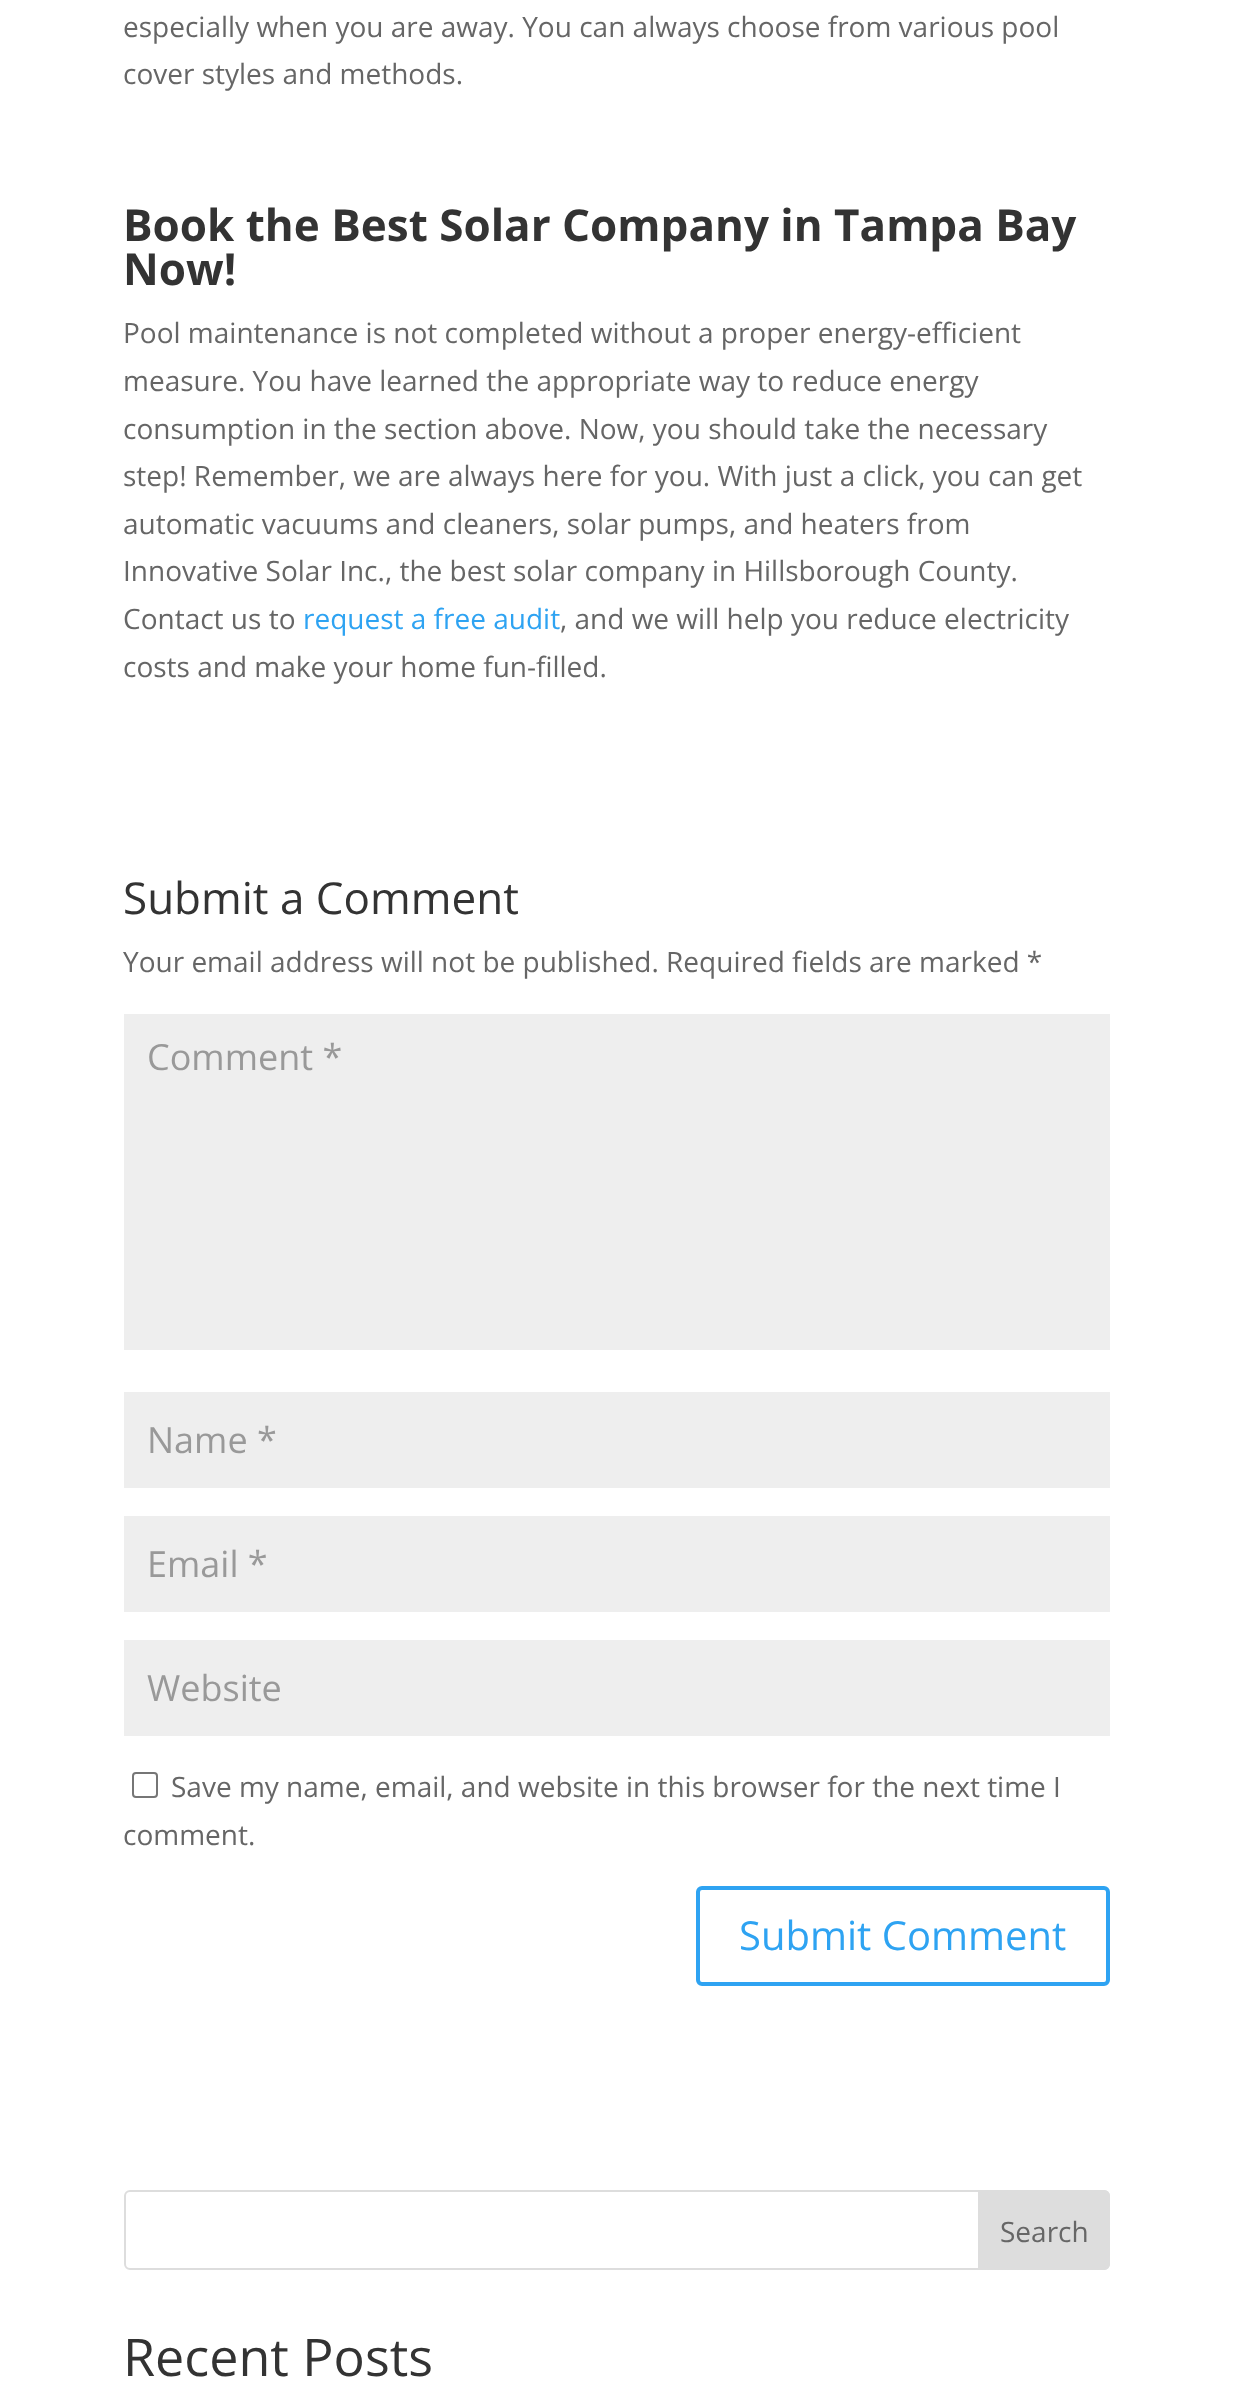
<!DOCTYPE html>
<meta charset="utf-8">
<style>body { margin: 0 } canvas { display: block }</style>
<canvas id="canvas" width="1234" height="2388"></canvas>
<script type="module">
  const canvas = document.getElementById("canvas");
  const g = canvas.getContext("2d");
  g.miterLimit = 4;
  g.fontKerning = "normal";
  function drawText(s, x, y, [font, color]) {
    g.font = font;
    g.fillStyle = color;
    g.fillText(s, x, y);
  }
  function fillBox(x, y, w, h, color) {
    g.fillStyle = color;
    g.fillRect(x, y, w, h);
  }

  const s1 = ["28px Open Sans", "#666666"];
  const s2 = ["bold 44px Open Sans", "#333333"];
  const s3 = ["28px Open Sans", "#2EA3F2"];
  const s4 = ["44px Open Sans", "#333333"];
  const s5 = ["36px Open Sans", "#999999"];
  const s6 = ["40px Open Sans", "#2EA3F2"];
  const s7 = ["52px Open Sans", "#333333"];

  fillBox(0, 0, 1234, 2388, "#FFFFFF");
  drawText("especially when you are away. You can always choose from various pool", 123, 37, s1);
  drawText("cover styles and methods.", 123, 84, s1);
  drawText("Book the Best Solar Company in Tampa Bay", 123, 241, s2);
  drawText("Now!", 123, 285, s2);
  drawText("Pool maintenance is not completed without a proper energy-efficient", 123, 343, s1);
  drawText("measure. You have learned the appropriate way to reduce energy", 123, 391, s1);
  drawText("consumption in the section above. Now, you should take the necessary", 123, 439, s1);
  drawText("step! Remember, we are always here for you. With just a click, you can get", 123, 486, s1);
  drawText("automatic vacuums and cleaners, solar pumps, and heaters from", 123, 534, s1);
  drawText("Innovative Solar Inc., the best solar company in Hillsborough County.", 123, 581, s1);
  drawText("Contact us to", 123, 629, s1);
  drawText("request a free audit", 303, 629, s3);
  drawText(", and we will help you reduce electricity", 560, 629, s1);
  drawText("costs and make your home fun-filled.", 123, 677, s1);
  drawText("Submit a Comment", 123, 914, s4);
  drawText("Your email address will not be published. Required fields are marked *", 123, 972, s1);
  fillBox(124, 1014, 986, 336, "#EEEEEE");
  drawText("Comment *", 147, 1070, s5);
  fillBox(124, 1392, 986, 96, "#EEEEEE");
  drawText("Name *", 147, 1453, s5);
  fillBox(124, 1516, 986, 96, "#EEEEEE");
  drawText("Email *", 147, 1577, s5);
  fillBox(124, 1640, 986, 96, "#EEEEEE");
  drawText("Website", 147, 1701, s5);
  g.beginPath();
  g.roundRect(133, 1773, 24, 24, 3);
  g.strokeStyle = "#767676";
  g.lineWidth = 2;
  g.stroke();
  drawText("Save my name, email, and website in this browser for the next time I", 171, 1797, s1);
  drawText("comment.", 123, 1845, s1);
  g.beginPath();
  g.roundRect(698, 1888, 410, 96, 4);
  g.strokeStyle = "#2EA3F2";
  g.lineWidth = 4;
  g.stroke();
  drawText("Submit Comment", 739, 1950, s6);
  g.beginPath();
  g.roundRect(125, 2191, 984, 78, 5);
  g.strokeStyle = "#DDDDDD";
  g.lineWidth = 2;
  g.stroke();
  g.fillStyle = "#DDDDDD";
  g.beginPath();
  g.roundRect(979, 2191, 130, 78, [0, 5, 5, 0]);
  g.fill();
  g.stroke();
  drawText("Search", 1000, 2242, s1);
  drawText("Recent Posts", 123, 2376, s7);
</script>
